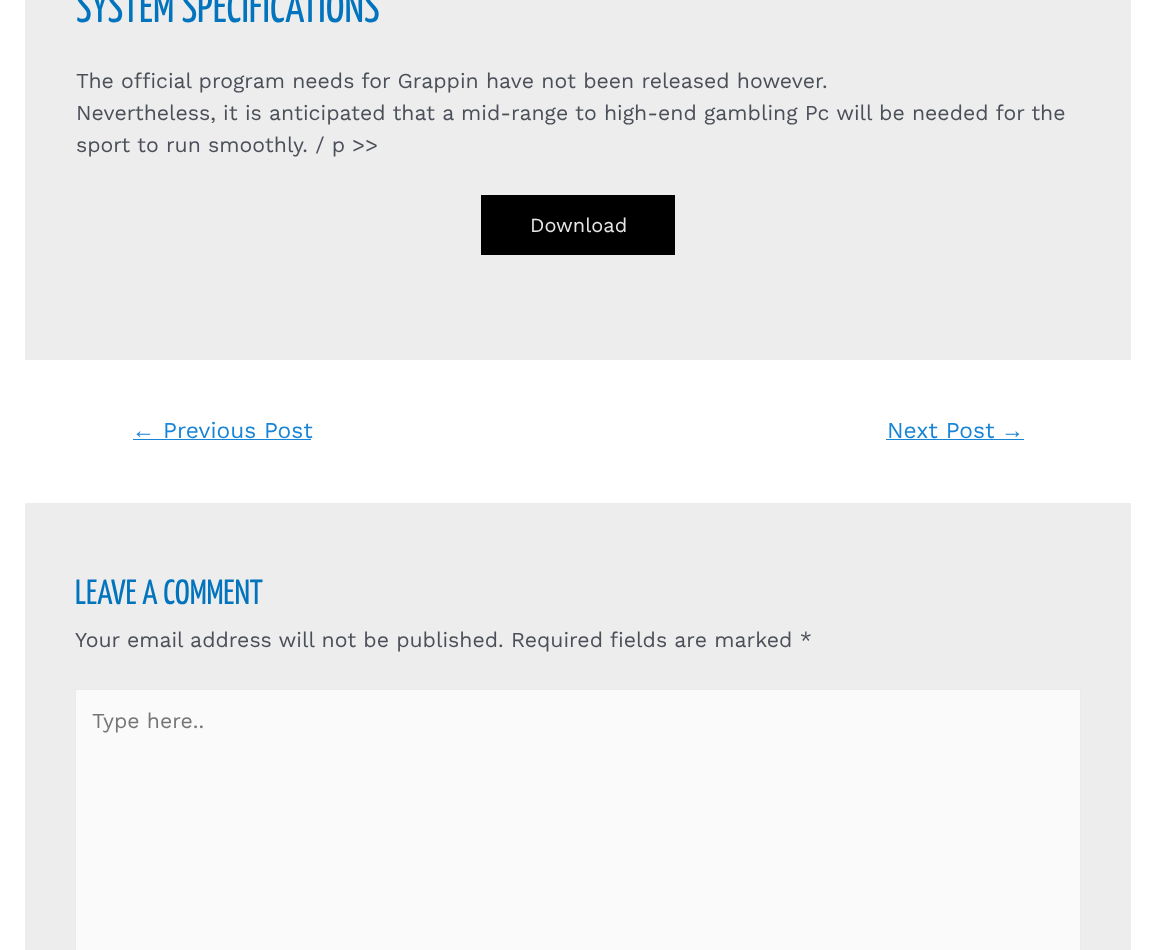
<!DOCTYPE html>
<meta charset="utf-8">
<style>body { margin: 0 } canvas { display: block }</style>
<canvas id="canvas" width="1156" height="950"></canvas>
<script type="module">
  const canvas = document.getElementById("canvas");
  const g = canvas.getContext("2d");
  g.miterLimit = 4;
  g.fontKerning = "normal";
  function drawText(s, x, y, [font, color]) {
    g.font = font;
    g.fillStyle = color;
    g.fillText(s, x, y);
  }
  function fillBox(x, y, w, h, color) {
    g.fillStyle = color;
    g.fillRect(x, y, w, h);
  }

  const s1 = ["200 43.75px Yanone Kaffeesatz", "#0274BE"];
  const s2 = ["21.25px Work Sans", "#4B4F58"];
  const s3 = ["20px Work Sans", "#E6E6E6"];
  const s4 = ["22.75px Liberation Sans", "#1884D6"];
  const s5 = ["22.75px Work Sans", "#1884D6"];
  const s6 = ["200 35px Yanone Kaffeesatz", "#0274BE"];
  const s7 = ["21.25px Work Sans", "#757575"];

  fillBox(0, 0, 1156, 950, "#FFFFFF");
  fillBox(25, 0, 1106, 360, "#EDEDED");
  drawText("SYSTEM SPECIFICATIONS", 76, 22, s1);
  drawText("The official program needs for Grappin have not been released however.", 76, 88, s2);
  drawText("Nevertheless, it is anticipated that a mid-range to high-end gambling Pc will be needed for the", 76, 120, s2);
  drawText("sport to run smoothly. / p >>", 76, 152, s2);
  fillBox(481, 195, 194, 60, "#000000");
  drawText("Download", 530, 232, s3);
  drawText("←", 132, 438, s4);
  fillBox(133, 439, 178, 1, "#1884D6");
  drawText("Previous Post", 163, 438, s5);
  drawText("Next Post", 887, 438, s5);
  fillBox(886, 439, 138, 1, "#1884D6");
  drawText("→", 1001, 438, s4);
  fillBox(25, 503, 1106, 447, "#EDEDED");
  drawText("LEAVE A COMMENT", 75, 604, s6);
  drawText("Your email address will not be published. Required fields are marked *", 75, 647, s2);
  g.fillStyle = "#FAFAFA";
  g.beginPath();
  g.rect(75.5, 689.5, 1005, 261);
  g.fill();
  g.strokeStyle = "#EAEAEA";
  g.stroke();
  drawText("Type here..", 92, 728, s7);
</script>
